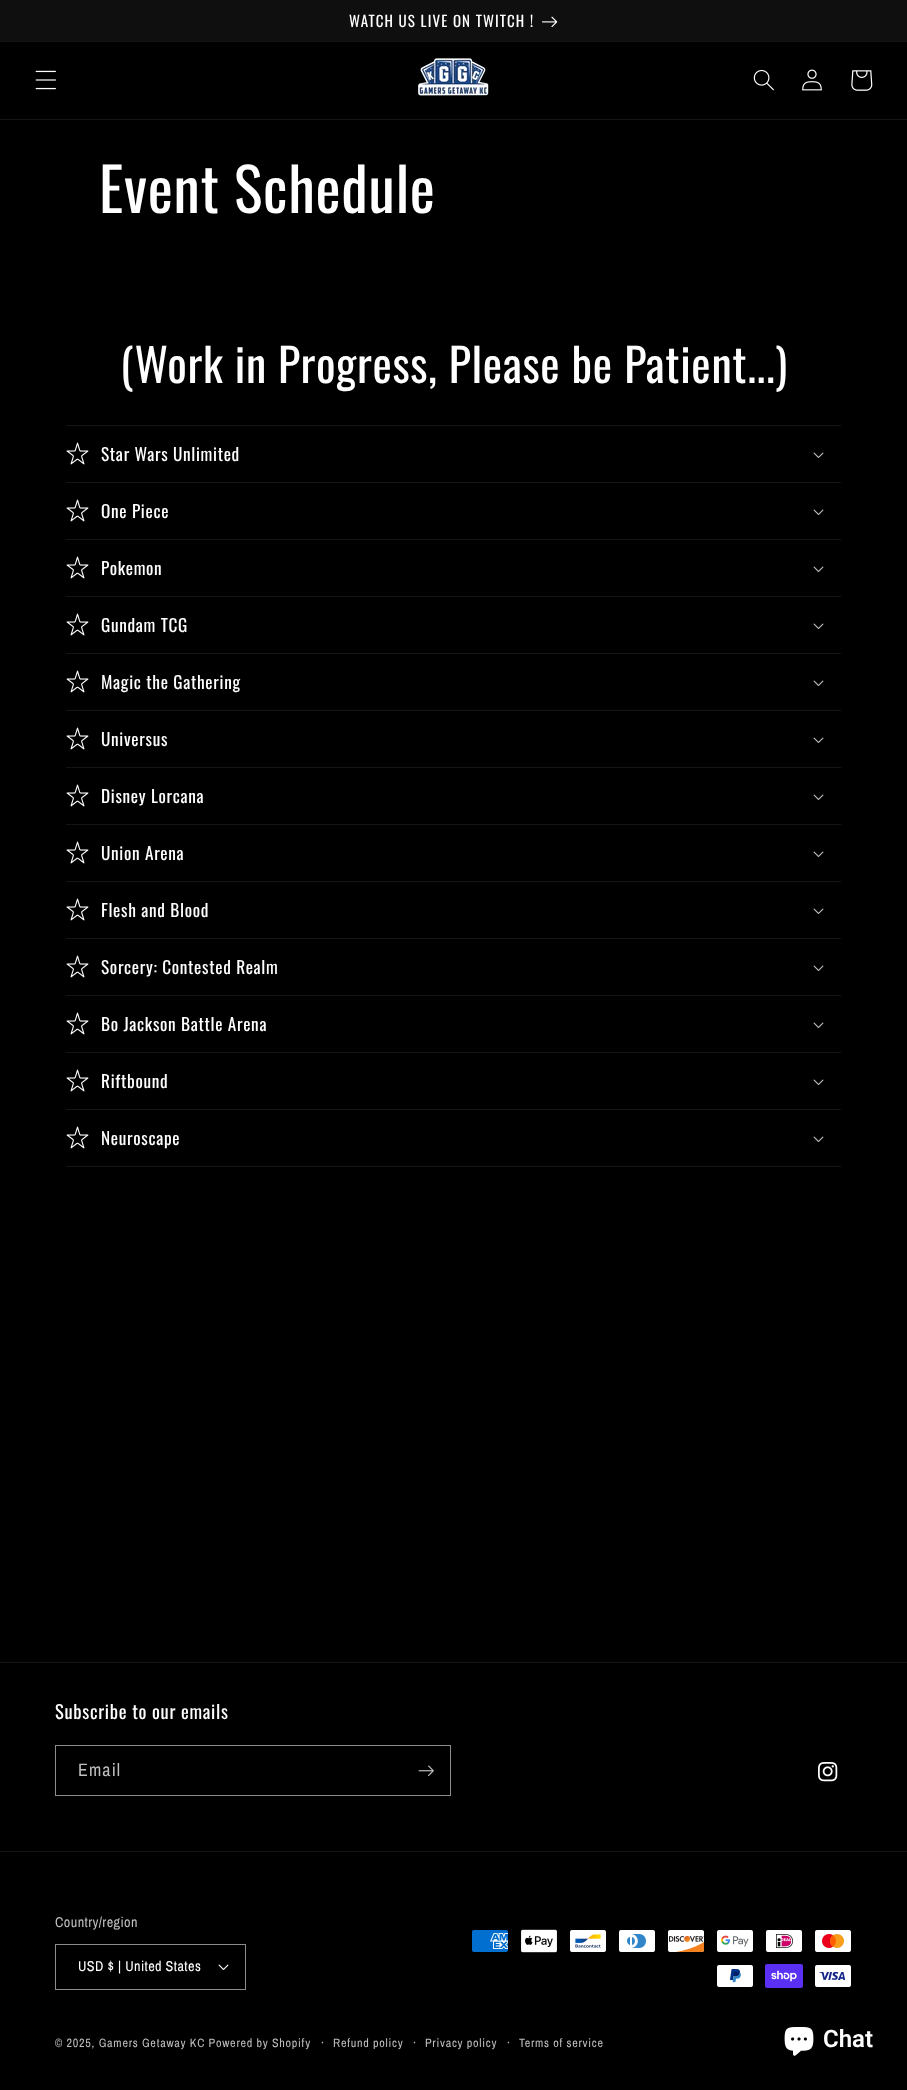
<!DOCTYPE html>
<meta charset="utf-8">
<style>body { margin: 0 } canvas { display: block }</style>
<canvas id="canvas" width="907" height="2090"></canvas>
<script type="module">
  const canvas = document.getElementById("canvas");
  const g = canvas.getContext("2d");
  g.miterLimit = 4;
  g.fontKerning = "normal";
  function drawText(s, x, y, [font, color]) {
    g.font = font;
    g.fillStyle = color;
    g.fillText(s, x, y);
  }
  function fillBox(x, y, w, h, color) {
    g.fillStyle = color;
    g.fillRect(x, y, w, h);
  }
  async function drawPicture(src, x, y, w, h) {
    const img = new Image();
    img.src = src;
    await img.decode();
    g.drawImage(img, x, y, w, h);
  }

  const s1 = ["15px Oswald", "#FFFFFF"];
  const s2 = ["59.75px Oswald", "#FFFFFF"];
  const s3 = ["46px Oswald", "#FFFFFF"];
  const s4 = ["17.25px Oswald", "#FFFFFF"];
  const s5 = ["18.5px Oswald", "#FFFFFF"];
  const s6 = ["18px Archivo Narrow", "#BFBFBF"];
  const s7 = ["14.25px Archivo Narrow", "#BFBFBF"];
  const s8 = ["14.25px Archivo Narrow", "#FFFFFF"];
  const s9 = ["12.1px Archivo Narrow", "#BFBFBF"];
  const s10 = ["13px Archivo Narrow", "#BFBFBF"];
  const s11 = ["600 24px Roboto", "#FFFFFF"];

  fillBox(0, 0, 907, 2090, "#000000");
  fillBox(0, 41, 907, 1, "#141414");
  fillBox(0, 0, 907, 41, "#0F0F0F");
  g.letterSpacing = "1.1px";
  drawText("WATCH US LIVE ON TWITCH !", 349, 27, s1);
  await drawPicture("pic1.png", 542, 16, 16, 11);
  fillBox(0, 119, 907, 1, "#141414");
  await drawPicture("pic2.png", 35, 70, 21, 20);
  await drawPicture("pic3.png", 418, 58, 71, 38);
  await drawPicture("pic4.png", 753, 69, 21, 22);
  await drawPicture("pic5.png", 802, 69, 20, 22);
  await drawPicture("pic6.png", 851, 70, 22, 21);
  g.letterSpacing = "0.7px";
  drawText("Event Schedule", 99, 213, s2);
  drawText("(Work in Progress, Please be Patient...)", 120, 383, s3);
  fillBox(66, 425, 775, 1, "#141414");
  fillBox(66, 482, 775, 1, "#141414");
  await drawPicture("pic7.png", 66, 442, 23, 23);
  drawText("Star Wars Unlimited", 101, 461, s4);
  await drawPicture("pic8.png", 813, 452, 11, 6);
  fillBox(66, 539, 775, 1, "#141414");
  await drawPicture("pic7.png", 66, 499, 23, 23);
  drawText("One Piece", 101, 518, s4);
  await drawPicture("pic8.png", 813, 509, 11, 6);
  fillBox(66, 596, 775, 1, "#141414");
  await drawPicture("pic7.png", 66, 556, 23, 23);
  drawText("Pokemon", 101, 575, s4);
  await drawPicture("pic8.png", 813, 566, 11, 6);
  fillBox(66, 653, 775, 1, "#141414");
  await drawPicture("pic7.png", 66, 613, 23, 23);
  drawText("Gundam TCG", 101, 632, s4);
  await drawPicture("pic8.png", 813, 623, 11, 6);
  fillBox(66, 710, 775, 1, "#141414");
  await drawPicture("pic7.png", 66, 670, 23, 23);
  drawText("Magic the Gathering", 101, 689, s4);
  await drawPicture("pic8.png", 813, 680, 11, 6);
  fillBox(66, 767, 775, 1, "#141414");
  await drawPicture("pic7.png", 66, 727, 23, 23);
  drawText("Universus", 101, 746, s4);
  await drawPicture("pic8.png", 813, 737, 11, 6);
  fillBox(66, 824, 775, 1, "#141414");
  await drawPicture("pic7.png", 66, 784, 23, 23);
  drawText("Disney Lorcana", 101, 803, s4);
  await drawPicture("pic8.png", 813, 794, 11, 6);
  fillBox(66, 881, 775, 1, "#141414");
  await drawPicture("pic7.png", 66, 841, 23, 23);
  drawText("Union Arena", 101, 860, s4);
  await drawPicture("pic8.png", 813, 851, 11, 6);
  fillBox(66, 938, 775, 1, "#141414");
  await drawPicture("pic7.png", 66, 898, 23, 23);
  drawText("Flesh and Blood", 101, 917, s4);
  await drawPicture("pic8.png", 813, 908, 11, 6);
  fillBox(66, 995, 775, 1, "#141414");
  await drawPicture("pic7.png", 66, 955, 23, 23);
  drawText("Sorcery: Contested Realm", 101, 974, s4);
  await drawPicture("pic8.png", 813, 965, 11, 6);
  fillBox(66, 1052, 775, 1, "#141414");
  await drawPicture("pic7.png", 66, 1012, 23, 23);
  drawText("Bo Jackson Battle Arena", 101, 1031, s4);
  await drawPicture("pic8.png", 813, 1022, 11, 6);
  fillBox(66, 1109, 775, 1, "#141414");
  await drawPicture("pic7.png", 66, 1069, 23, 23);
  drawText("Riftbound", 101, 1088, s4);
  await drawPicture("pic8.png", 813, 1079, 11, 6);
  fillBox(66, 1166, 775, 1, "#141414");
  await drawPicture("pic7.png", 66, 1126, 23, 23);
  drawText("Neuroscape", 101, 1145, s4);
  await drawPicture("pic8.png", 813, 1136, 11, 6);
  fillBox(0, 1662, 907, 1, "#141414");
  drawText("Subscribe to our emails", 55, 1719, s5);
  g.strokeStyle = "#8C8C8C";
  g.strokeRect(55.5, 1745.5, 395, 50);
  g.letterSpacing = "1.1px";
  drawText("Email", 78, 1776, s6);
  await drawPicture("pic9.png", 418, 1765, 16, 11);
  await drawPicture("pic10.png", 818, 1762, 20, 20);
  fillBox(0, 1851, 907, 1, "#141414");
  g.letterSpacing = "0.4px";
  drawText("Country/region", 55, 1927, s7);
  await drawPicture("pic11.png", 218, 1964, 11, 6);
  g.strokeRect(55.5, 1944.5, 190, 45);
  drawText("USD $ | United States", 78, 1971, s8);
  await drawPicture("pic12.png", 472, 1930, 36, 22);
  await drawPicture("pic13.png", 521, 1929, 36, 24);
  await drawPicture("pic14.png", 570, 1930, 36, 22);
  await drawPicture("pic15.png", 619, 1930, 36, 22);
  await drawPicture("pic16.png", 668, 1930, 37, 22);
  await drawPicture("pic17.png", 717, 1930, 36, 22);
  await drawPicture("pic18.png", 766, 1930, 36, 22);
  await drawPicture("pic19.png", 815, 1930, 36, 22);
  await drawPicture("pic20.png", 717, 1965, 36, 22);
  await drawPicture("pic21.png", 765, 1964, 38, 24);
  await drawPicture("pic22.png", 815, 1965, 36, 22);
  g.letterSpacing = "0.75px";
  drawText("© 2025, Gamers Getaway KC Powered by Shopify", 55, 2047, s9);
  drawText("·", 321, 2047, s10);
  drawText("Refund policy", 333, 2047, s9);
  drawText("·", 413, 2047, s10);
  drawText("Privacy policy", 425, 2047, s9);
  drawText("·", 507, 2047, s10);
  drawText("Terms of service", 519, 2047, s9);
  await drawPicture("pic23.png", 784, 2027, 30, 29);
  g.letterSpacing = "0px";
  drawText("Chat", 823, 2047, s11);
</script>
